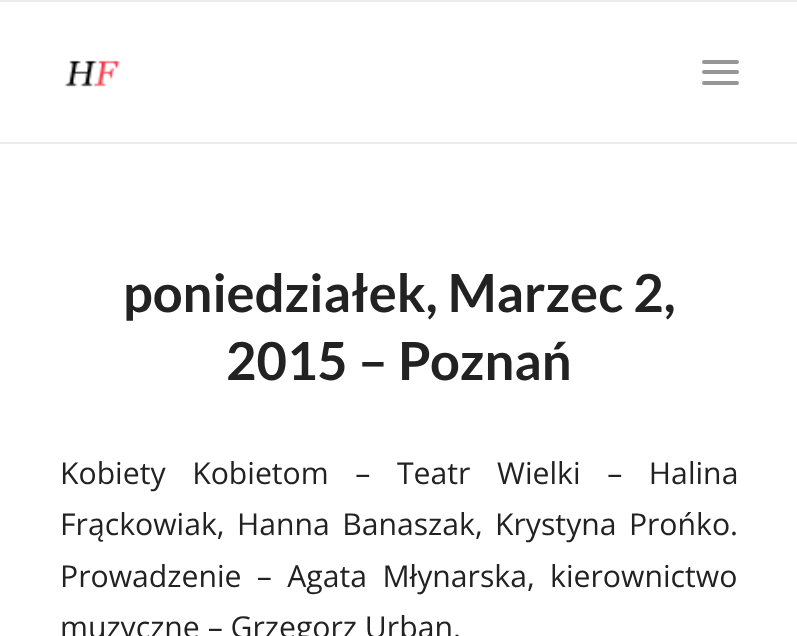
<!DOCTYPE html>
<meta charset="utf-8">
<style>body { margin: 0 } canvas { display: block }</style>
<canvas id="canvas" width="797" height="636"></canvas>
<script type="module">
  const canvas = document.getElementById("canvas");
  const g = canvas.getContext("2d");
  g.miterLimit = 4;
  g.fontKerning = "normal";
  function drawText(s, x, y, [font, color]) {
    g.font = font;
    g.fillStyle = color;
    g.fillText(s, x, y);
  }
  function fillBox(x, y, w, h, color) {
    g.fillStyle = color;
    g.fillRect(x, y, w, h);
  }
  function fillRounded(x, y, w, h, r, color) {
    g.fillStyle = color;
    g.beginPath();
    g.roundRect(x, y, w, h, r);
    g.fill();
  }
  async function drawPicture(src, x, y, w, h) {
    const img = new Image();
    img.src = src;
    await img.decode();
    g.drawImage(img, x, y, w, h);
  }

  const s1 = ["bold 52.5px Lato", "#222222"];
  const s2 = ["30.2px Open Sans", "#222222"];

  fillBox(0, 0, 797, 636, "#FFFFFF");
  fillBox(0, 0, 797, 2, "#EBEBEB");
  fillBox(0, 142, 797, 2, "#EBEBEB");
  await drawPicture("pic1.png", 64, 60, 56, 27);
  fillRounded(702, 70, 37, 4, 2, "#969696");
  fillRounded(702, 60, 37, 4, 2, "#969696");
  fillRounded(702, 81, 37, 4, 2, "#969696");
  drawText("poniedziałek, Marzec 2,", 123, 312, s1);
  drawText("2015 – Poznań", 226, 380, s1);
  g.wordSpacing = "18.75px";
  drawText("Kobiety Kobietom – Teatr Wielki – Halina", 60, 484, s2);
  g.wordSpacing = "4.5px";
  drawText("Frąckowiak, Hanna Banaszak, Krystyna Prońko.", 60, 535, s2);
  g.wordSpacing = "7.5px";
  drawText("Prowadzenie – Agata Młynarska, kierownictwo", 60, 587, s2);
  g.wordSpacing = "0px";
  drawText("muzyczne – Grzegorz Urban.", 60, 638, s2);
</script>
